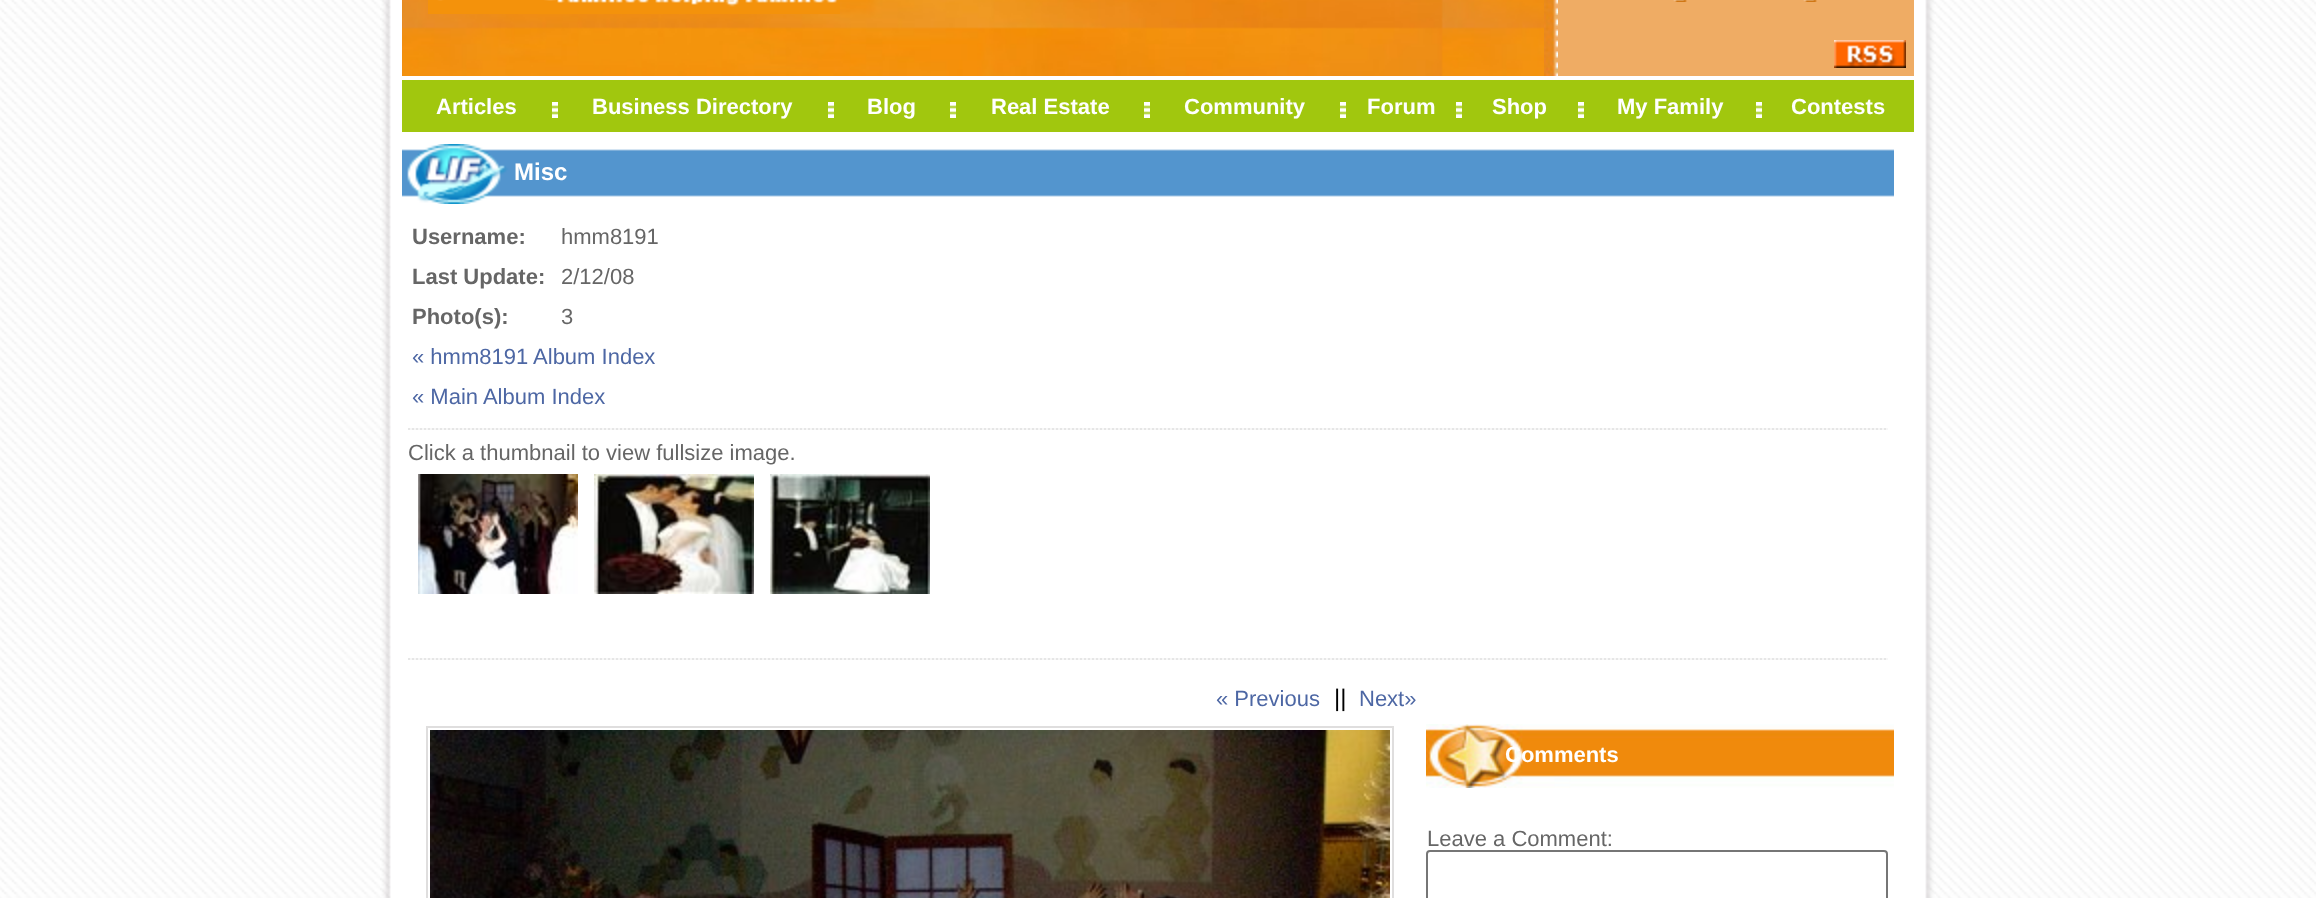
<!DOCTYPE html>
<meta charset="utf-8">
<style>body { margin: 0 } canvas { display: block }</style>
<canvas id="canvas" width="2316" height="898"></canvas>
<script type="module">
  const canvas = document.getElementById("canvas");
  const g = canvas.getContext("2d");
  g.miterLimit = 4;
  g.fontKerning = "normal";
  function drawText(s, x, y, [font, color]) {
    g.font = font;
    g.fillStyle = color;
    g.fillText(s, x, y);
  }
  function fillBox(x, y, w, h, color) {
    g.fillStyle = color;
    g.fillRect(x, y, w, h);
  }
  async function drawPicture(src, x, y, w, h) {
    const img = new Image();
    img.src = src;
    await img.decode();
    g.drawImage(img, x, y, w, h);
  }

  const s1 = ["bold 22px Liberation Sans", "#FFFFFF"];
  const s2 = ["bold 24px Liberation Sans", "#FFFFFF"];
  const s3 = ["bold 22px Liberation Sans", "#666666"];
  const s4 = ["22px Liberation Sans", "#666666"];
  const s5 = ["22px Liberation Sans", "#4D67A4"];
  const s6 = ["24px Liberation Sans", "#000000"];

  fillBox(0, 0, 2316, 898, "#FFFFFF");
  await drawPicture("pic1.png", 0, 0, 380, 898);
  await drawPicture("pic2.png", 380, 0, 11, 898);
  await drawPicture("pic3.png", 402, 0, 1142, 76);
  await drawPicture("pic4.png", 428, 0, 412, 14);
  await drawPicture("pic5.png", 1544, 0, 14, 76);
  fillBox(1558, 0, 356, 76, "#EFAC64");
  await drawPicture("pic6.png", 1673, 0, 14, 2);
  await drawPicture("pic6.png", 1803, 0, 14, 2);
  await drawPicture("pic7.png", 1834, 40, 72, 28);
  fillBox(402, 80, 1512, 52, "#A1C70E");
  drawText("Articles", 436, 114, s1);
  await drawPicture("pic8.png", 552, 102, 6, 16);
  drawText("Business Directory", 592, 114, s1);
  await drawPicture("pic8.png", 828, 102, 6, 16);
  drawText("Blog", 867, 114, s1);
  await drawPicture("pic8.png", 950, 102, 6, 16);
  drawText("Real Estate", 991, 114, s1);
  await drawPicture("pic8.png", 1144, 102, 6, 16);
  drawText("Community", 1184, 114, s1);
  await drawPicture("pic8.png", 1340, 102, 6, 16);
  drawText("Forum", 1367, 114, s1);
  await drawPicture("pic8.png", 1456, 102, 6, 16);
  drawText("Shop", 1492, 114, s1);
  await drawPicture("pic8.png", 1578, 102, 6, 16);
  drawText("My Family", 1617, 114, s1);
  await drawPicture("pic8.png", 1756, 102, 6, 16);
  drawText("Contests", 1791, 114, s1);
  await drawPicture("pic9.png", 402, 144, 1492, 60);
  drawText("Misc", 514, 180, s2);
  drawText("Username:", 412, 244, s3);
  drawText("hmm8191", 561, 244, s4);
  drawText("Last Update:", 412, 284, s3);
  drawText("2/12/08", 561, 284, s4);
  drawText("Photo(s):", 412, 324, s3);
  drawText("3", 561, 324, s4);
  drawText("« hmm8191 Album Index", 412, 364, s5);
  drawText("« Main Album Index", 412, 404, s5);
  await drawPicture("pic10.png", 408, 428, 1480, 2);
  drawText("Click a thumbnail to view fullsize image.", 408, 460, s4);
  await drawPicture("pic11.png", 418, 474, 512, 120);
  await drawPicture("pic10.png", 408, 658, 1480, 2);
  drawText("« Previous", 1216, 706, s5);
  drawText("||", 1334, 706, s6);
  drawText("Next»", 1359, 706, s5);
  g.strokeStyle = "#DFDEDE";
  g.lineWidth = 2;
  g.strokeRect(427, 727, 966, 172);
  await drawPicture("pic12.png", 430, 730, 960, 168);
  await drawPicture("pic13.png", 1426, 724, 468, 64);
  drawText("Comments", 1505, 762, s1);
  drawText("Leave a Comment:", 1427, 846, s4);
  g.beginPath();
  g.roundRect(1427, 851, 460, 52, 3);
  g.strokeStyle = "#767676";
  g.stroke();
  await drawPicture("pic14.png", 1925, 0, 11, 898);
  await drawPicture("pic15.png", 1936, 0, 380, 898);
</script>
